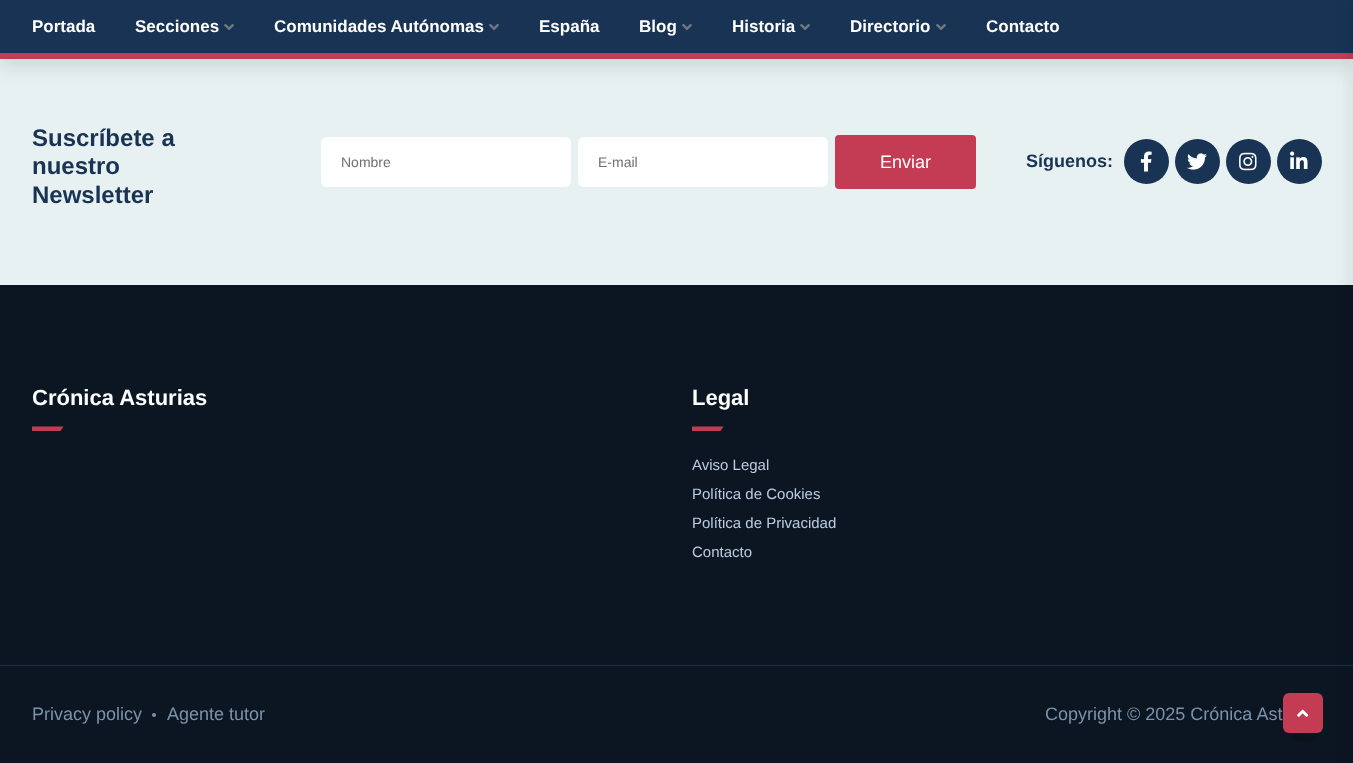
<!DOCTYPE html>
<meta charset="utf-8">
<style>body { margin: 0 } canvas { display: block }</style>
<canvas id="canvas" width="1353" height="763"></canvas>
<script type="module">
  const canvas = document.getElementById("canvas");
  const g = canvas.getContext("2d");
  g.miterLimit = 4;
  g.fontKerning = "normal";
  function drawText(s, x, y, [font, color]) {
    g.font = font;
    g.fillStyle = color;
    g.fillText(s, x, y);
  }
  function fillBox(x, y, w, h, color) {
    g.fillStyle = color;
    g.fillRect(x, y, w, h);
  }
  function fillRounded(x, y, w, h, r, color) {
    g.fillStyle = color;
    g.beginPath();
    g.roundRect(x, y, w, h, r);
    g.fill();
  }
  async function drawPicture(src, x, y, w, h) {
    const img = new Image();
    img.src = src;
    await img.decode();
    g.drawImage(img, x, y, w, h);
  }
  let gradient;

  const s1 = ["bold 17px Liberation Sans", "#FFFFFF"];
  const s2 = ["bold 24px Liberation Sans", "#183354"];
  const s3 = ["14px Liberation Sans", "#6F6F6F"];
  const s4 = ["18px Liberation Sans", "#FFFFFF"];
  const s5 = ["bold 18px Liberation Sans", "#183354"];
  const s6 = ["bold 22px Liberation Sans", "#FFFFFF"];
  const s7 = ["15px Liberation Sans", "#BACCE1"];
  const s8 = ["18px Liberation Sans", "#7C91AA"];

  fillBox(0, 0, 1353, 763, "#0C1622");
  fillBox(0, 59, 1353, 226, "#E8F1F1");
  g.fillStyle = "rgba(25, 25, 25, 0.1)";
  g.filter = "blur(7.5px)";
  g.beginPath();
  g.rect(0, 10, 1353, 59);
  g.fill();
  g.filter = "none";
  fillBox(0, 0, 1353, 53, "#183354");
  fillBox(0, 53, 1353, 6, "#C33C54");
  drawText("Portada", 32, 32, s1);
  drawText("Secciones", 135, 32, s1);
  await drawPicture("pic1.png", 224, 23, 10, 8);
  drawText("Comunidades Autónomas", 274, 32, s1);
  await drawPicture("pic1.png", 489, 23, 10, 8);
  drawText("España", 539, 32, s1);
  drawText("Blog", 639, 32, s1);
  await drawPicture("pic1.png", 682, 23, 10, 8);
  drawText("Historia", 732, 32, s1);
  await drawPicture("pic1.png", 800, 23, 10, 8);
  drawText("Directorio", 850, 32, s1);
  await drawPicture("pic1.png", 936, 23, 10, 8);
  drawText("Contacto", 986, 32, s1);
  fillBox(0, 665, 1353, 1, "#202E3F");
  g.fillStyle = "rgba(0, 0, 0, 0.06)";
  g.filter = "blur(7px)";
  g.beginPath();
  g.rect(1347, 0, 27, 763);
  g.fill();
  g.filter = "none";
  drawText("Suscríbete a", 32, 146, s2);
  drawText("nuestro", 32, 174, s2);
  drawText("Newsletter", 32, 203, s2);
  fillRounded(321, 137, 250, 50, 6, "#FFFFFF");
  drawText("Nombre", 341, 167, s3);
  fillRounded(578, 137, 250, 50, 6, "#FFFFFF");
  drawText("E-mail", 598, 167, s3);
  fillRounded(835, 135, 141, 54, 4, "#C33C54");
  drawText("Enviar", 880, 168, s4);
  drawText("Síguenos:", 1026, 167, s5);
  g.beginPath();
  g.arc(1146.5, 161.5, 22.5, 0, Math.PI * 2);
  g.fill();
  await drawPicture("pic2.png", 1140, 151, 12, 21);
  g.beginPath();
  g.arc(1197.5, 161.5, 22.5, 0, Math.PI * 2);
  g.fill();
  await drawPicture("pic3.png", 1187, 153, 20, 17);
  g.beginPath();
  g.arc(1248.5, 161.5, 22.5, 0, Math.PI * 2);
  g.fill();
  await drawPicture("pic4.png", 1239, 152, 18, 19);
  g.beginPath();
  g.arc(1299.5, 161.5, 22.5, 0, Math.PI * 2);
  g.fill();
  await drawPicture("pic5.png", 1290, 151, 18, 18);
  drawText("Crónica Asturias", 32, 405, s6);
  g.fillStyle = "#C33C54";
  g.beginPath();
  g.moveTo(60.5, 431);
  g.lineTo(32, 431);
  g.lineTo(32, 426.5);
  g.lineTo(63.5, 426.5);
  g.closePath();
  g.fill();
  drawText("Legal", 692, 405, s6);
  g.fillStyle = "#C33C54";
  g.beginPath();
  g.moveTo(720.5, 431);
  g.lineTo(692, 431);
  g.lineTo(692, 426.5);
  g.lineTo(723.5, 426.5);
  g.closePath();
  g.fill();
  drawText("Aviso Legal", 692, 470, s7);
  drawText("Política de Cookies", 692, 499, s7);
  drawText("Política de Privacidad", 692, 528, s7);
  drawText("Contacto", 692, 557, s7);
  drawText("Privacy policy", 32, 720, s8);
  g.beginPath();
  g.arc(154, 715, 2, 0, Math.PI * 2);
  g.fill();
  drawText("Agente tutor", 167, 720, s8);
  drawText("Copyright © 2025 Crónica Ast", 1045, 720, s8);
  fillRounded(1283, 693, 40, 40, 6, "#C33C54");
  await drawPicture("pic6.png", 1297, 709, 12, 8);
  gradient = g.createRadialGradient(1303, 2598.59, 0, 1303, 2598.59, 25);
  gradient.addColorStop(0, "#09111A");
  gradient.addColorStop(0.8, "#0C1622");
  g.fillStyle = gradient;
  g.beginPath();
  g.rect(1289, 734, 28, 8);
  g.save();
  g.clip();
  g.scale(1, 7.1 / 25);
  g.fillRect(0, 0, 1353, 2687);
  g.restore();
</script>
